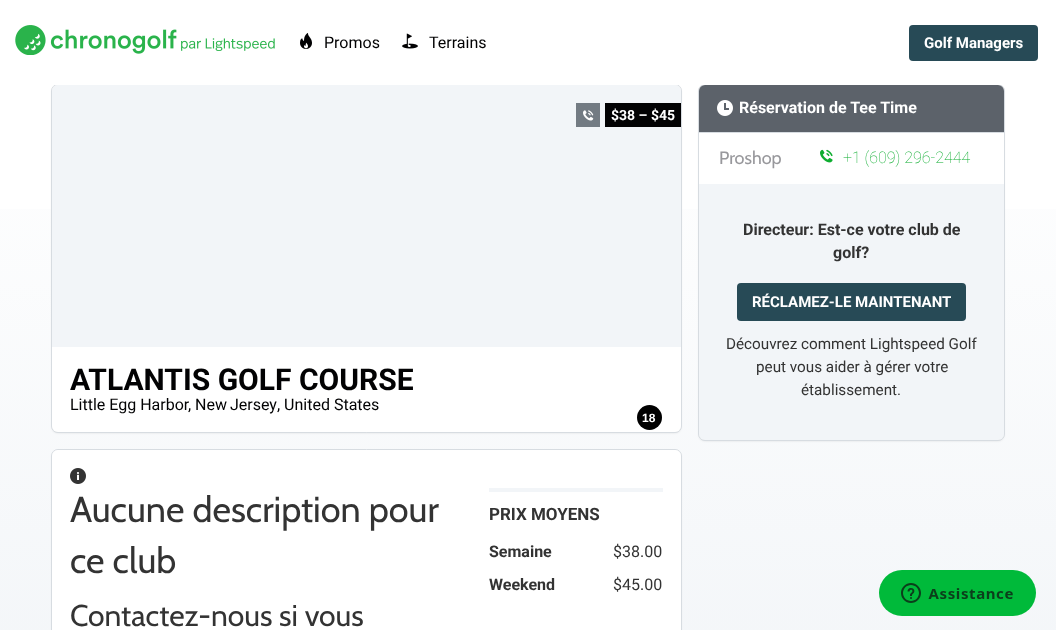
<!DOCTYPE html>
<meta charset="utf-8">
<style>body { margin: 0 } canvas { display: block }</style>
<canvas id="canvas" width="1056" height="630"></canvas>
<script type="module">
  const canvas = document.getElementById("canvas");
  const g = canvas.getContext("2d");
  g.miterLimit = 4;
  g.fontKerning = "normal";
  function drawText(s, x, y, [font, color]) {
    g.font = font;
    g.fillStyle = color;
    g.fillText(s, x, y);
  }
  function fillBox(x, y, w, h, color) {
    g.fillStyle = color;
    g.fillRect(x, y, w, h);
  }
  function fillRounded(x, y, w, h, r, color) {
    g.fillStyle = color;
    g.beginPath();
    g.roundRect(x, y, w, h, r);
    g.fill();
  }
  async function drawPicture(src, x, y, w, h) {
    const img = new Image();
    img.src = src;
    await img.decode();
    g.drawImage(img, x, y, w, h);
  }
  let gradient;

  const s1 = ["16px Roboto", "#020203"];
  const s2 = ["bold 15px Roboto", "#FFFFFF"];
  const s3 = ["bold 14px Roboto", "#FFFFFF"];
  const s4 = ["bold 30px Roboto", "#020203"];
  const s5 = ["bold 12px Liberation Sans", "#FFFFFF"];
  const s6 = ["36px Cabin", "#333333"];
  const s7 = ["30px Cabin", "#333333"];
  const s8 = ["bold 17px Roboto", "#333333"];
  const s9 = ["bold 16px Roboto", "#333333"];
  const s10 = ["16px Roboto", "#333333"];
  const s11 = ["bold 16px Roboto", "#FFFFFF"];
  const s12 = ["18px Cabin", "#98989C"];
  const s13 = ["100 16px Roboto", "#0EAD30"];
  const s14 = ["15.25px Roboto", "#333333"];

  fillBox(0, 0, 1056, 630, "#FFFFFF");
  gradient = g.createLinearGradient(528, 85, 528, 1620);
  gradient.addColorStop(0, "#FFFFFF");
  gradient.addColorStop(0.42, "#F2F5F8");
  g.fillStyle = gradient;
  g.fillRect(0, 209, 1056, 421);
  g.fillStyle = "rgba(0, 0, 0, 0.1)";
  g.filter = "blur(1px)";
  g.beginPath();
  g.roundRect(52, 86, 629, 347, 6);
  g.fill();
  g.filter = "none";
  g.beginPath();
  g.roundRect(51.5, 84.5, 630, 348, 6.5);
  g.strokeStyle = "#D7DCE1";
  g.stroke();
  g.filter = "blur(1px)";
  g.beginPath();
  g.roundRect(699, 86, 305, 355, 6);
  g.fill();
  g.filter = "none";
  g.beginPath();
  g.roundRect(698.5, 84.5, 306, 356, 6.5);
  g.stroke();
  fillRounded(0, 0, 1056, 85, 4, "#FFFFFF");
  await drawPicture("pic1.png", 15, 25, 260, 30);
  await drawPicture("pic2.png", 300, 33, 12, 16);
  drawText("Promos", 324, 48, s1);
  await drawPicture("pic3.png", 402, 33, 16, 16);
  drawText("Terrains", 429, 48, s1);
  fillRounded(909, 25, 129, 36, 4, "#274A56");
  drawText("Golf Managers", 924, 48, s2);
  g.fillStyle = "#F2F5F8";
  g.beginPath();
  g.roundRect(52, 85, 629, 262, [6, 6, 0, 0]);
  g.fill();
  fillBox(576, 103, 24, 24, "#737B83");
  await drawPicture("pic4.png", 583, 110, 11, 11);
  fillBox(605, 103, 76, 24, "#020203");
  drawText("$38 – $45", 611, 120, s3);
  g.beginPath();
  g.roundRect(52, 347, 629, 85, [0, 0, 6, 6]);
  g.fill();
  drawText("ATLANTIS GOLF COURSE", 70, 390, s4);
  drawText(",", 188, 410, s1);
  drawText("Little Egg Harbor", 70, 410, s1);
  drawText(", United States", 277, 410, s1);
  g.wordSpacing = "-1px";
  drawText("New Jersey", 195, 410, s1);
  g.fillStyle = "#000000";
  g.beginPath();
  g.arc(649.5, 417.5, 12.5, 0, Math.PI * 2);
  g.fill();
  g.wordSpacing = "0px";
  drawText("18", 642, 422, s5);
  g.fillStyle = "rgba(0, 0, 0, 0.1)";
  g.filter = "blur(1px)";
  g.beginPath();
  g.roundRect(52, 451, 629, 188, 6);
  g.fill();
  g.filter = "none";
  g.beginPath();
  g.roundRect(51.5, 449.5, 630, 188, 6.5);
  g.stroke();
  fillRounded(52, 450, 629, 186, 6, "#FFFFFF");
  await drawPicture("pic5.png", 70, 468, 16, 16);
  drawText("Aucune description pour", 70, 522, s6);
  drawText("ce club", 70, 573, s6);
  drawText("Contactez-nous si vous", 70, 626, s7);
  fillBox(489, 488, 174, 4, "#F2F5F8");
  drawText("PRIX MOYENS", 489, 520, s8);
  drawText("Semaine", 489, 557, s9);
  drawText("$38.00", 613, 557, s10);
  drawText("Weekend", 489, 590, s9);
  drawText("$45.00", 613, 590, s10);
  g.fillStyle = "#5C626A";
  g.beginPath();
  g.roundRect(699, 85, 305, 47, [6, 6, 0, 0]);
  g.fill();
  fillBox(699, 132, 305, 1, "#D7DCE1");
  await drawPicture("pic6.png", 717, 100, 16, 16);
  drawText("Réservation de Tee Time", 739, 113, s11);
  fillBox(699, 133, 305, 51, "#FFFFFF");
  drawText("Proshop", 719, 164, s12);
  await drawPicture("pic7.png", 820, 149, 13, 14);
  drawText("+1 (609) 296-2444", 843, 163, s13);
  g.fillStyle = "#F2F5F8";
  g.beginPath();
  g.roundRect(699, 184, 305, 256, [0, 0, 6, 6]);
  g.fill();
  drawText("Directeur: Est-ce votre club de", 743, 235, s9);
  drawText("golf?", 833, 258, s9);
  fillRounded(737, 283, 229, 38, 4, "#274A56");
  drawText("RÉCLAMEZ-LE MAINTENANT", 752, 307, s2);
  drawText("Découvrez comment Lightspeed Golf", 726, 349, s14);
  drawText("peut vous aider à gérer votre", 756, 372, s14);
  drawText("établissement.", 801, 395, s14);
  await drawPicture("pic8.png", 879, 570, 157, 46);
</script>
